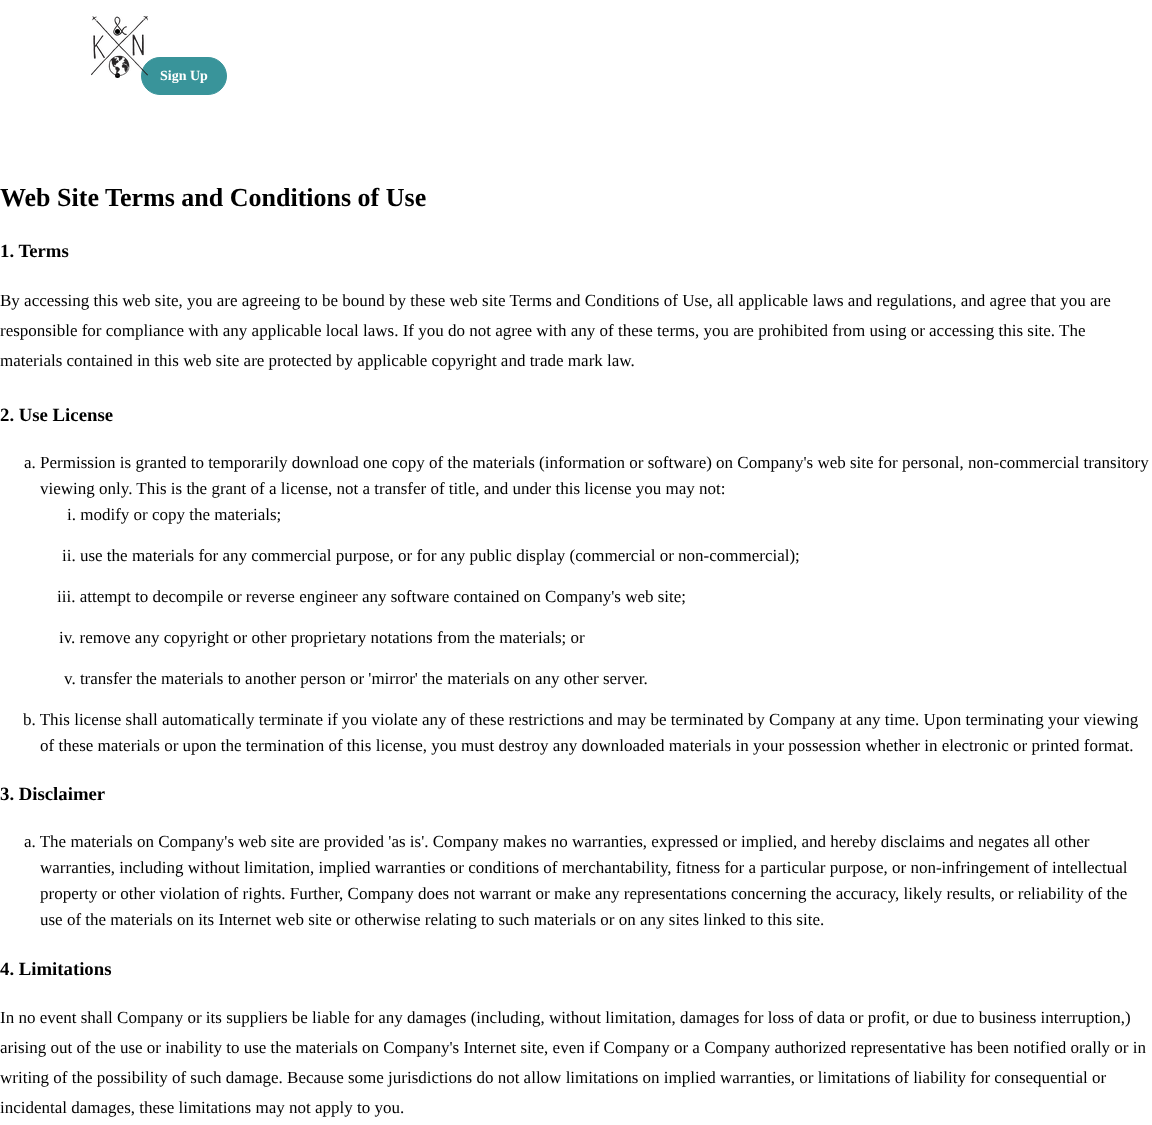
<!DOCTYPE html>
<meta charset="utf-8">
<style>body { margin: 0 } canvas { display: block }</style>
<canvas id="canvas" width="1152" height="1125"></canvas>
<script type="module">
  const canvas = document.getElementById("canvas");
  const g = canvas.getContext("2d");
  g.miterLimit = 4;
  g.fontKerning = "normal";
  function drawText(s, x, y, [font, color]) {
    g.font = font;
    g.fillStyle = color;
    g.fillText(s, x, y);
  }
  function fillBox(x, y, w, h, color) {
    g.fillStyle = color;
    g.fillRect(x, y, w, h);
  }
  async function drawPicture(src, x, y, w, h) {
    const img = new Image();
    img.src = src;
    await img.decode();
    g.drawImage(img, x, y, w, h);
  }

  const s1 = ["bold 14px Liberation Serif", "#FFFFFF"];
  const s2 = ["bold 26px Liberation Serif", "#000000"];
  const s3 = ["bold 18.75px Liberation Serif", "#000000"];
  const s4 = ["17px Liberation Serif", "#000000"];

  fillBox(0, 0, 1152, 1125, "#FFFFFF");
  g.fillStyle = "#000000";
  g.beginPath();
  g.arc(117.5, 31.5, 2.5, 0, Math.PI * 2);
  g.fill();
  g.beginPath();
  g.arc(117.5, 75.5, 2.5, 0, Math.PI * 2);
  g.fill();
  g.fillStyle = "#39949A";
  g.beginPath();
  g.roundRect(141.5, 57.5, 85, 37, 18.5);
  g.fill();
  g.strokeStyle = "#39949A";
  g.stroke();
  await drawPicture("pic1.png", 91, 16, 57, 60);
  drawText("Sign Up", 160, 80, s1);
  drawText("Web Site Terms and Conditions of Use", 0, 206, s2);
  drawText("1. Terms", 0, 257, s3);
  drawText("By accessing this web site, you are agreeing to be bound by these web site Terms and Conditions of Use, all applicable laws and regulations, and agree that you are", 0, 306, s4);
  drawText("responsible for compliance with any applicable local laws. If you do not agree with any of these terms, you are prohibited from using or accessing this site. The", 0, 336, s4);
  drawText("materials contained in this web site are protected by applicable copyright and trade mark law.", 0, 366, s4);
  drawText("2. Use License", 0, 421, s3);
  drawText("a. Permission is granted to temporarily download one copy of the materials (information or software) on Company's web site for personal, non-commercial transitory", 24, 468, s4);
  drawText("viewing only. This is the grant of a license, not a transfer of title, and under this license you may not:", 40, 494, s4);
  drawText("i. modify or copy the materials;", 67, 520, s4);
  drawText("ii. use the materials for any commercial purpose, or for any public display (commercial or non-commercial);", 62, 561, s4);
  drawText("iii. attempt to decompile or reverse engineer any software contained on Company's web site;", 57, 602, s4);
  drawText("iv. remove any copyright or other proprietary notations from the materials; or", 59, 643, s4);
  drawText("v. transfer the materials to another person or 'mirror' the materials on any other server.", 64, 684, s4);
  drawText("b. This license shall automatically terminate if you violate any of these restrictions and may be terminated by Company at any time. Upon terminating your viewing", 23, 725, s4);
  drawText("of these materials or upon the termination of this license, you must destroy any downloaded materials in your possession whether in electronic or printed format.", 40, 751, s4);
  drawText("3. Disclaimer", 0, 800, s3);
  drawText("a. The materials on Company's web site are provided 'as is'. Company makes no warranties, expressed or implied, and hereby disclaims and negates all other", 24, 847, s4);
  drawText("warranties, including without limitation, implied warranties or conditions of merchantability, fitness for a particular purpose, or non-infringement of intellectual", 40, 873, s4);
  drawText("property or other violation of rights. Further, Company does not warrant or make any representations concerning the accuracy, likely results, or reliability of the", 40, 899, s4);
  drawText("use of the materials on its Internet web site or otherwise relating to such materials or on any sites linked to this site.", 40, 925, s4);
  drawText("4. Limitations", 0, 975, s3);
  drawText("In no event shall Company or its suppliers be liable for any damages (including, without limitation, damages for loss of data or profit, or due to business interruption,)", 0, 1023, s4);
  drawText("arising out of the use or inability to use the materials on Company's Internet site, even if Company or a Company authorized representative has been notified orally or in", 0, 1053, s4);
  drawText("writing of the possibility of such damage. Because some jurisdictions do not allow limitations on implied warranties, or limitations of liability for consequential or", 0, 1083, s4);
  drawText("incidental damages, these limitations may not apply to you.", 0, 1113, s4);
</script>
